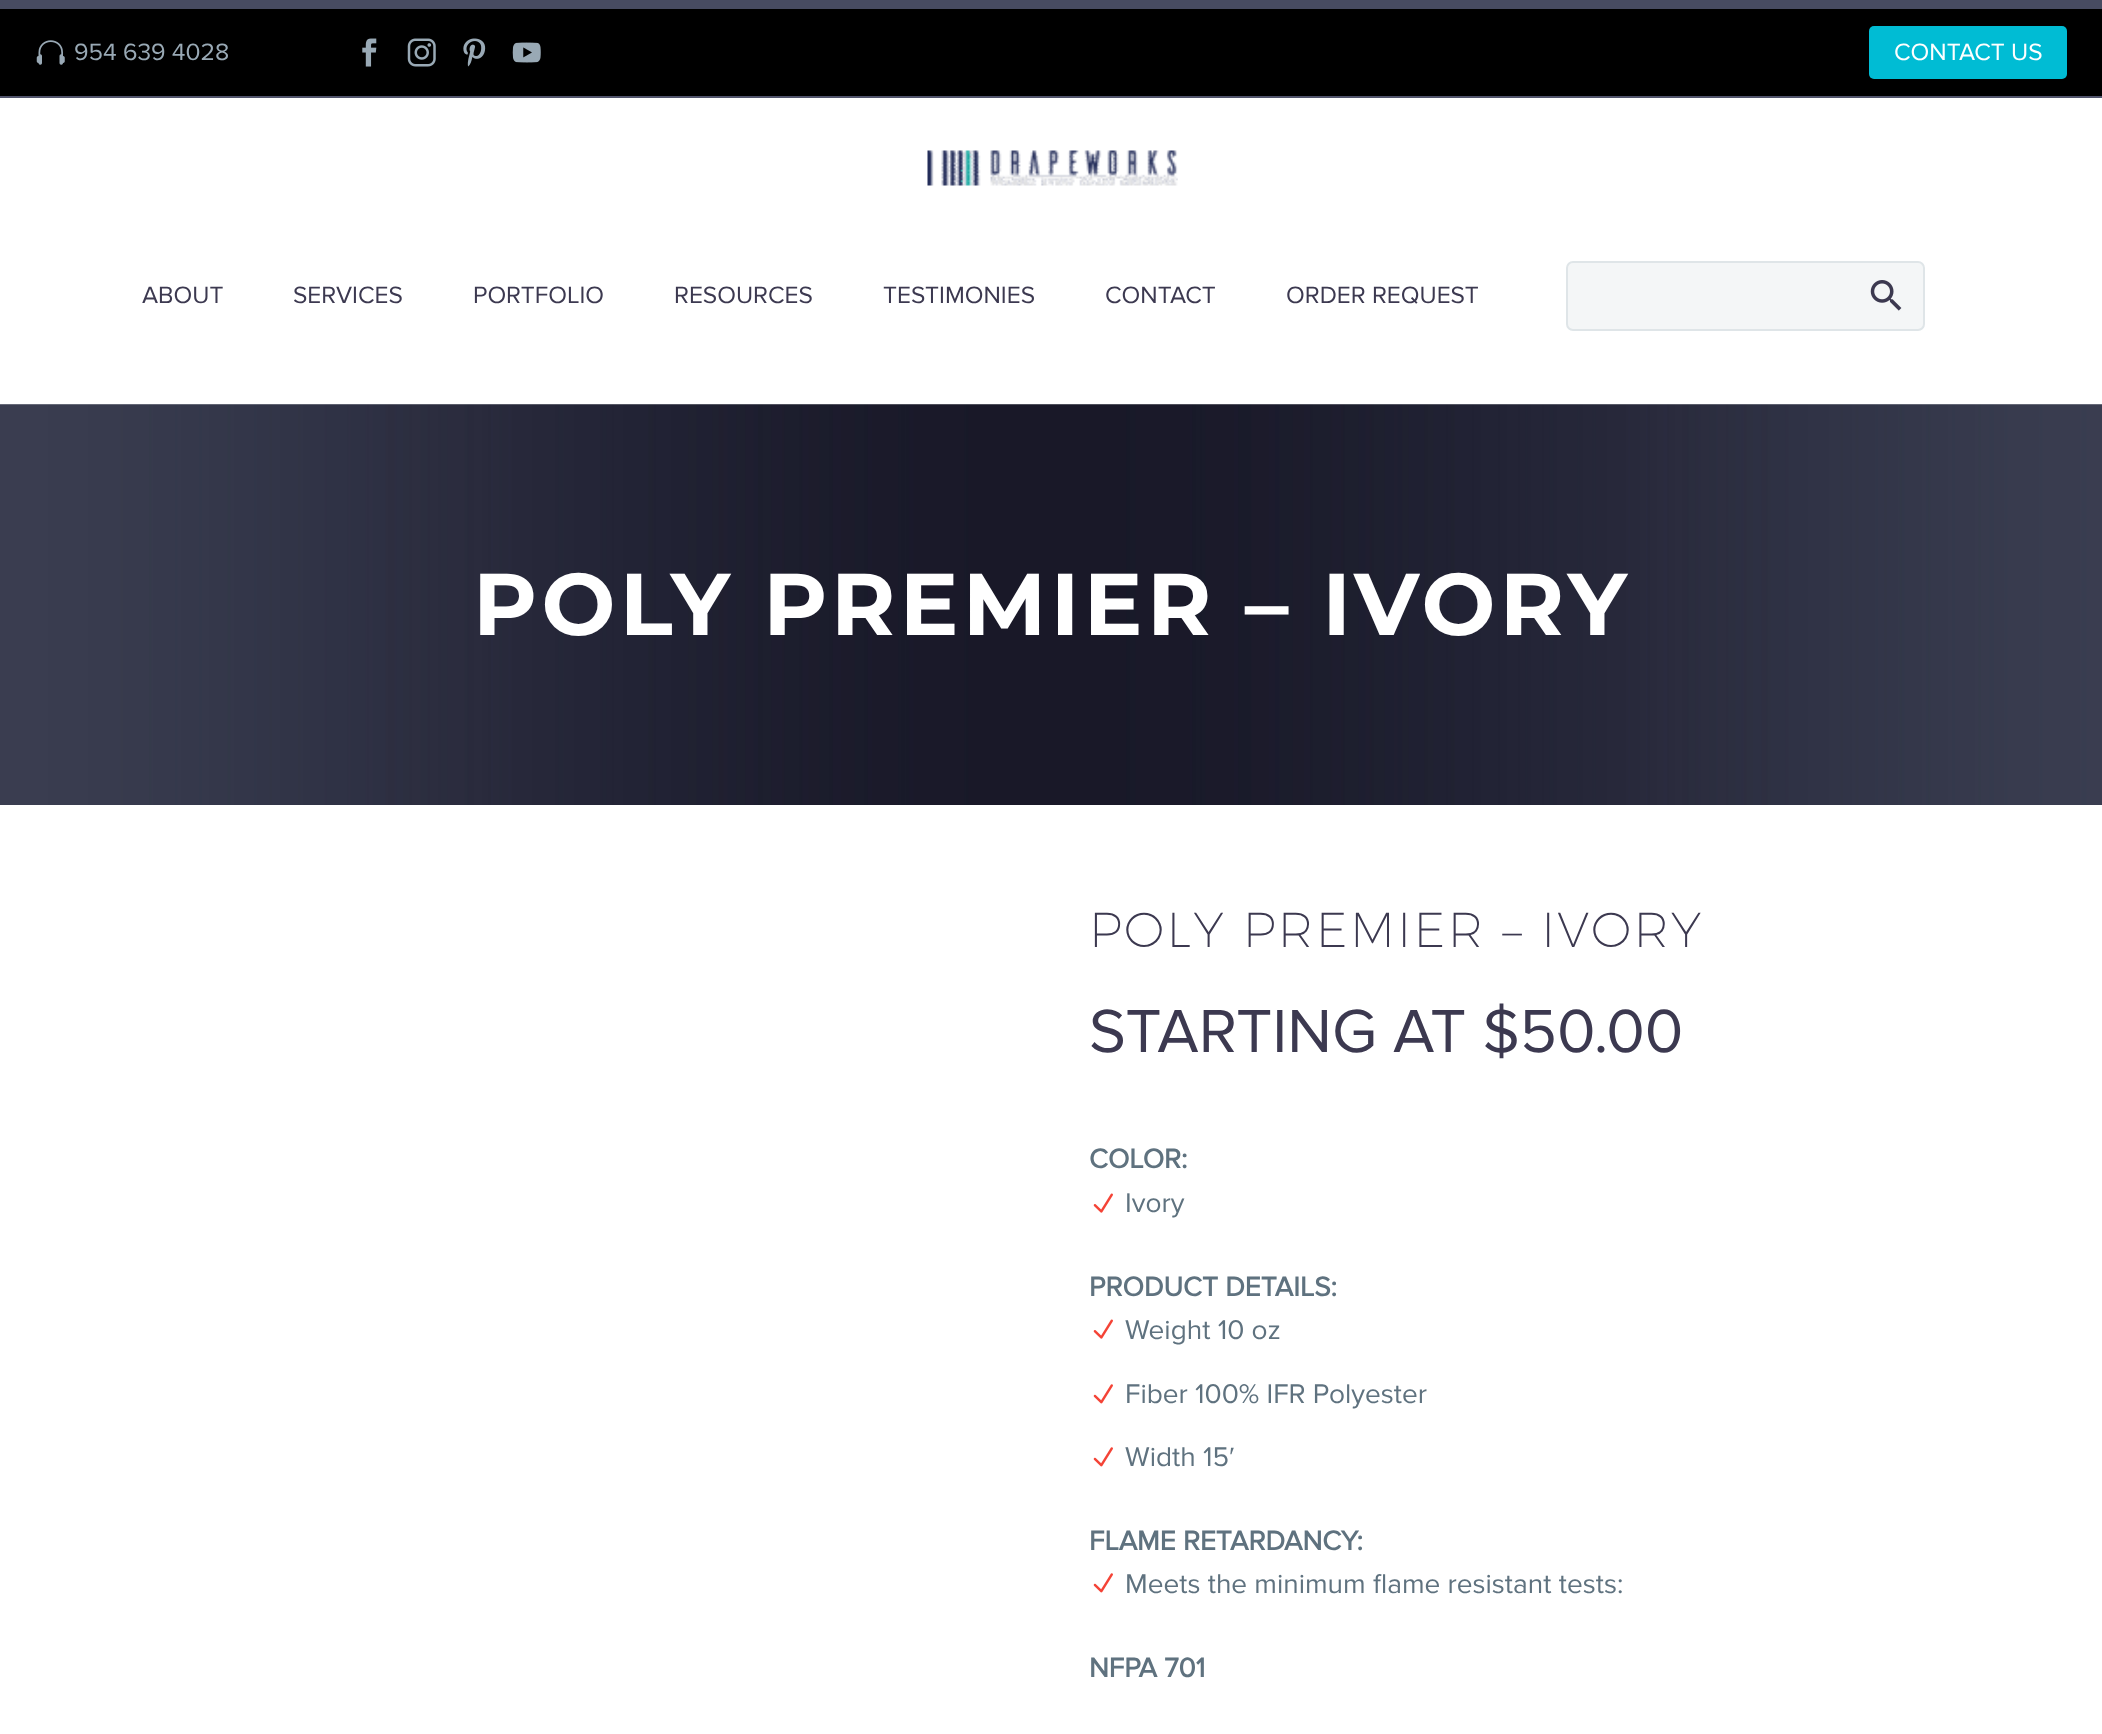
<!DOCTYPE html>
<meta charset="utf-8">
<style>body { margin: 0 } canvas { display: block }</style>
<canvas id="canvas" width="2102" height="1734"></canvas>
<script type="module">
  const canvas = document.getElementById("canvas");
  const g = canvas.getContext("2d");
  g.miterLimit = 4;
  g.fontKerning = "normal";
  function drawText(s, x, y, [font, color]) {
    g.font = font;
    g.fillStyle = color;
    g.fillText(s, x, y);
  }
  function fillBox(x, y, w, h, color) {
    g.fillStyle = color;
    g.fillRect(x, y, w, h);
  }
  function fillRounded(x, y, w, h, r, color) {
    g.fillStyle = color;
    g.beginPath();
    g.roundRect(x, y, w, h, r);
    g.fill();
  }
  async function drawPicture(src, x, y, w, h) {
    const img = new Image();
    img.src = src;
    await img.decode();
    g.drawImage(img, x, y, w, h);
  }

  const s1 = ["24.5px Proxima Nova", "#99A9B5"];
  const s2 = ["24.5px Proxima Nova", "#FFFFFF"];
  const s3 = ["24.5px Proxima Nova", "#3C3950"];
  const s4 = ["bold 87.5px Montserrat", "#FFFFFF"];
  const s5 = ["200 49px Montserrat", "#3C3950"];
  const s6 = ["63px Proxima Nova", "#3C3950"];
  const s7 = ["bold 28px Proxima Nova", "#5F727F"];
  const s8 = ["28px Proxima Nova", "#5F727F"];
  const s9 = ["28px Liberation Serif", "#5F727F"];

  fillBox(0, 0, 2102, 1734, "#FFFFFF");
  g.save();
  g.beginPath();
  g.rect(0, 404, 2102, 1);
  g.clip();
  g.fillStyle = "rgba(56, 69, 84, 0.2)";
  g.filter = "blur(2px)";
  g.beginPath();
  g.rect(0, 98, 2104, 306);
  g.fill();
  g.filter = "none";
  g.restore();
  fillBox(0, 9, 2102, 87, "#000000");
  fillBox(0, 0, 2102, 9, "#474B61");
  fillBox(0, 96, 2102, 2, "#51546C");
  await drawPicture("pic1.png", 36, 40, 29, 25);
  drawText("954 639 4028", 74, 60, s1);
  await drawPicture("pic2.png", 362, 38, 15, 29);
  await drawPicture("pic3.png", 407, 38, 29, 29);
  await drawPicture("pic4.png", 463, 38, 23, 29);
  await drawPicture("pic5.png", 512, 42, 29, 21);
  fillRounded(1869, 26, 198, 53, 5, "#00BCD4");
  drawText("CONTACT US", 1894, 60, s2);
  await drawPicture("pic6.png", 927, 150, 251, 36);
  drawText("ABOUT", 142, 303, s3);
  drawText("SERVICES", 293, 303, s3);
  drawText("PORTFOLIO", 473, 303, s3);
  drawText("RESOURCES", 674, 303, s3);
  drawText("TESTIMONIES", 883, 303, s3);
  drawText("CONTACT", 1105, 303, s3);
  drawText("ORDER REQUEST", 1286, 303, s3);
  g.fillStyle = "#F4F6F7";
  g.beginPath();
  g.roundRect(1567, 262, 357, 68, 6);
  g.fill();
  g.strokeStyle = "#DFE5E8";
  g.lineWidth = 2;
  g.stroke();
  await drawPicture("pic7.png", 1870, 280, 32, 31);
  await drawPicture("pic8.png", 0, 404, 2102, 401);
  g.letterSpacing = "4.4px";
  drawText("POLY PREMIER – IVORY", 473, 635, s4);
  g.letterSpacing = "2.5px";
  drawText("POLY PREMIER – IVORY", 1089, 947, s5);
  g.letterSpacing = "0px";
  drawText("STARTING AT $50.00", 1089, 1052, s6);
  drawText("COLOR:", 1089, 1168, s7);
  await drawPicture("pic9.png", 1093, 1193, 20, 20);
  drawText("Ivory", 1125, 1212, s8);
  drawText("PRODUCT DETAILS:", 1089, 1296, s7);
  await drawPicture("pic9.png", 1093, 1319, 20, 20);
  drawText("Weight 10 oz", 1125, 1339, s8);
  await drawPicture("pic10.png", 1093, 1384, 20, 20);
  drawText("Fiber 100% IFR Polyester", 1125, 1403, s8);
  await drawPicture("pic10.png", 1093, 1447, 20, 20);
  drawText("Width 15", 1125, 1466, s8);
  drawText("′", 1229, 1466, s9);
  drawText("FLAME RETARDANCY:", 1089, 1550, s7);
  await drawPicture("pic10.png", 1093, 1573, 20, 20);
  drawText("Meets the minimum flame resistant tests:", 1125, 1593, s8);
  drawText("NFPA 701", 1089, 1677, s7);
</script>
